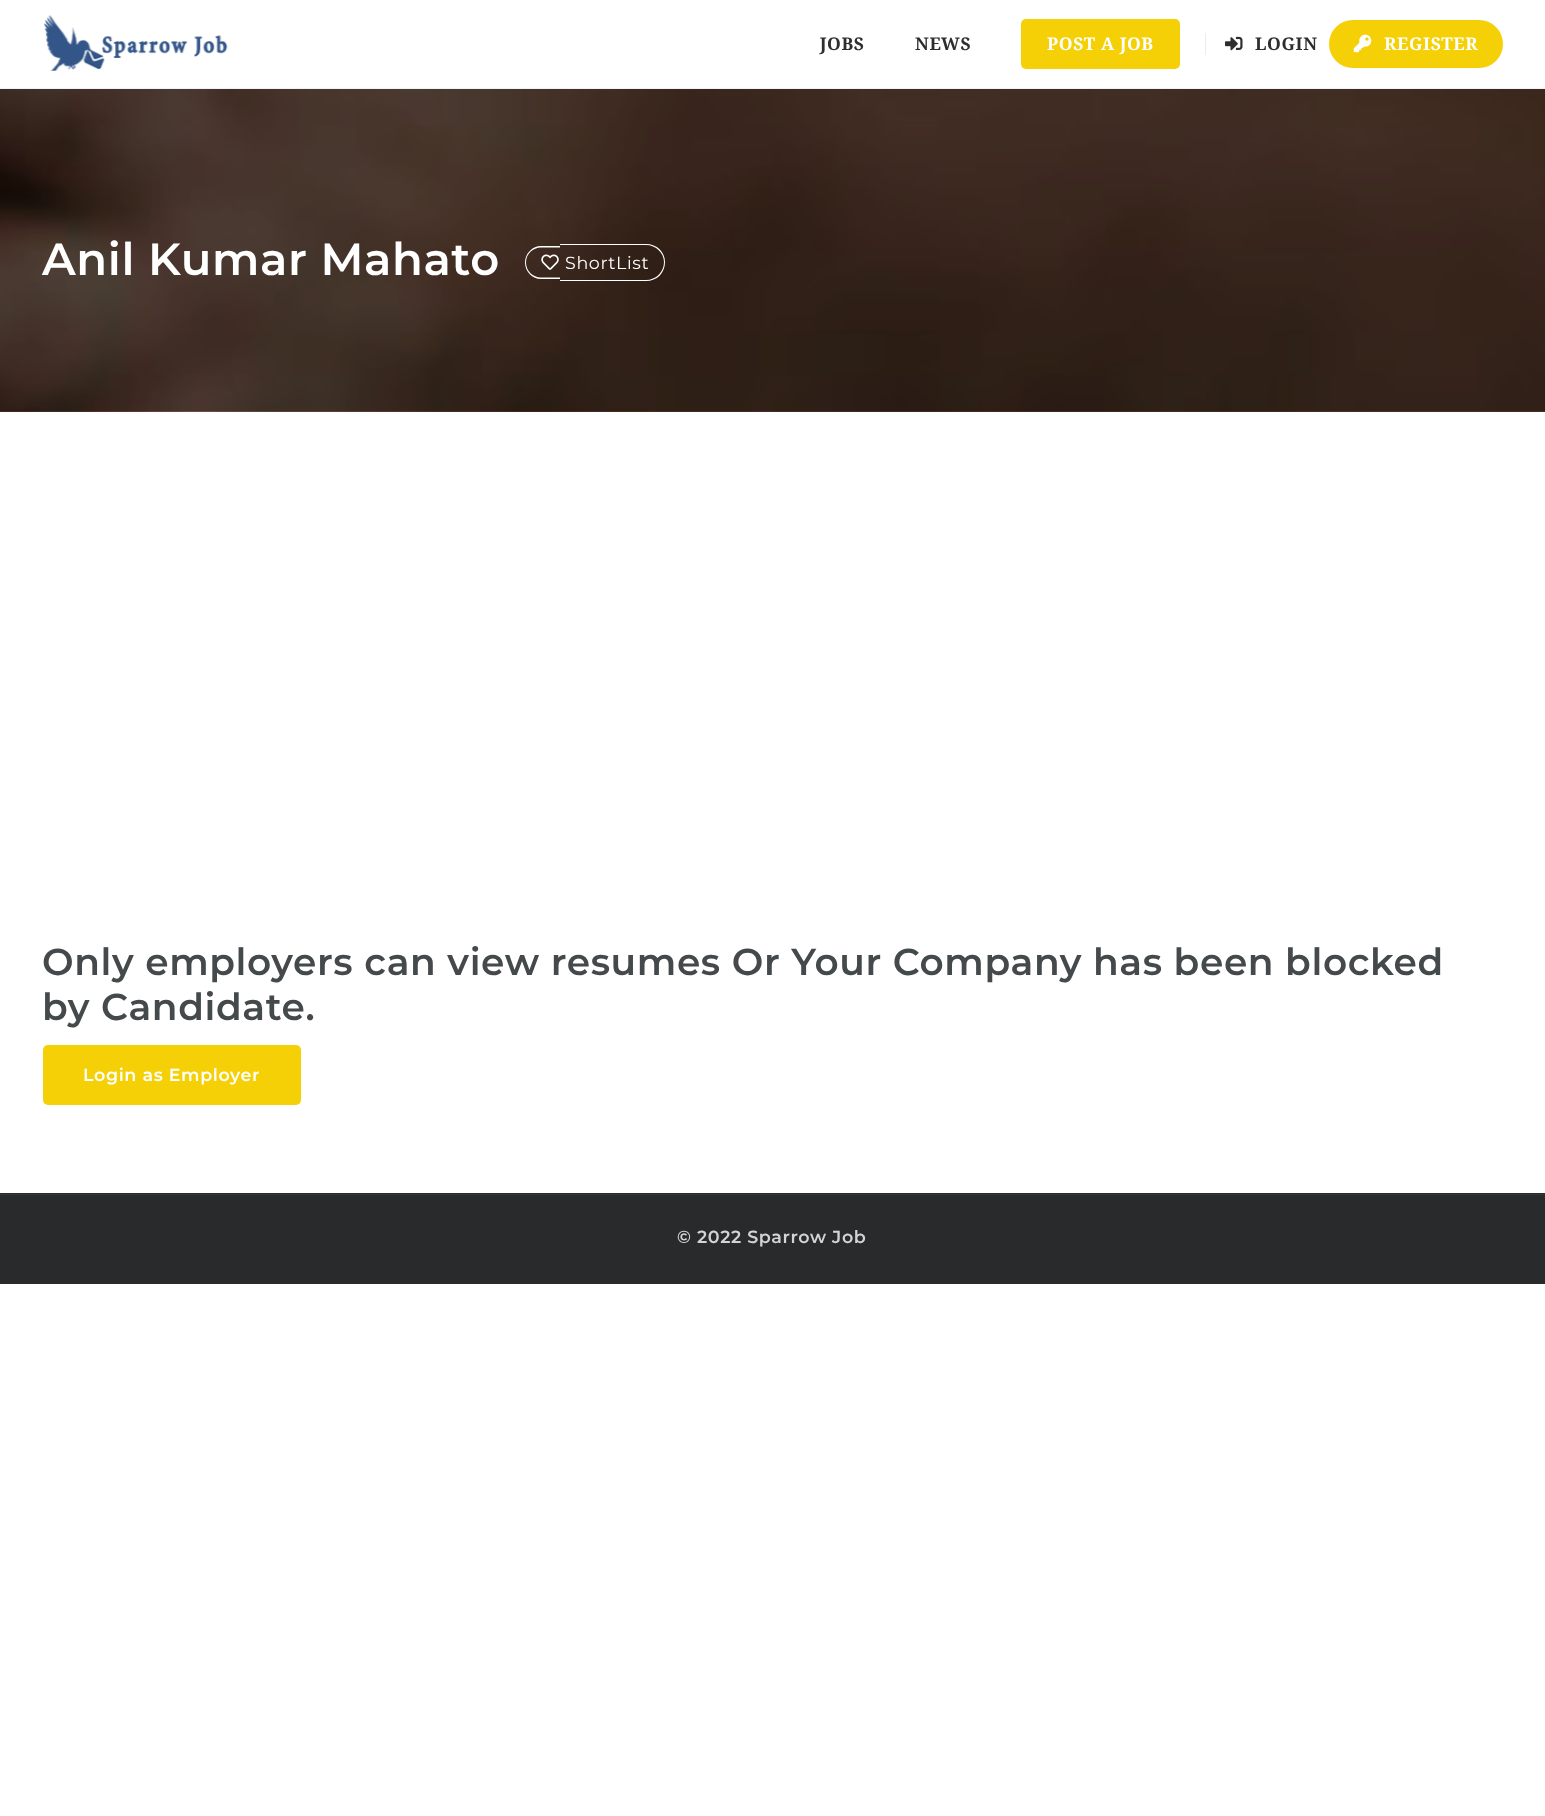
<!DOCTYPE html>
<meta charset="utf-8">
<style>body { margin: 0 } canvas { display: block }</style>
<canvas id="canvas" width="1545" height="1816"></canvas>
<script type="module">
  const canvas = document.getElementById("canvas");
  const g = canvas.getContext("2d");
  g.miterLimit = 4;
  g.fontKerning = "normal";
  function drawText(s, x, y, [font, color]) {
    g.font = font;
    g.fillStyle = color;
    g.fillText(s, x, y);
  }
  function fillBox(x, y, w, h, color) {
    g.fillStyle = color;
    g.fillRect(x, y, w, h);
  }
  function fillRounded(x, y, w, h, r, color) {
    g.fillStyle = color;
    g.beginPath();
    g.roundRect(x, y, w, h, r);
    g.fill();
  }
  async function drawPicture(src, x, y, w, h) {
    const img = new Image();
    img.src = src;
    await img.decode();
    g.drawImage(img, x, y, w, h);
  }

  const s1 = ["bold 17.5px Droid Serif", "#2E2E2E"];
  const s2 = ["bold 17.5px Droid Serif", "#FFFFFF"];
  const s3 = ["600 45px Montserrat", "#FFFFFF"];
  const s4 = ["17.5px Montserrat", "#FFFFFF"];
  const s5 = ["600 37.5px Montserrat", "#44494B"];
  const s6 = ["600 17.5px Montserrat", "#FFFFFF"];
  const s7 = ["600 17.5px Montserrat", "#D4D4D5"];

  fillBox(0, 0, 1545, 1816, "#FFFFFF");
  fillBox(0, 88, 1545, 1, "#F2F2F2");
  await drawPicture("pic1.png", 44, 15, 184, 56);
  g.letterSpacing = "0.62px";
  drawText("JOBS", 820, 50, s1);
  drawText("NEWS", 915, 50, s1);
  fillRounded(1021, 19, 159, 50, 5, "#F5D006");
  drawText("POST A JOB", 1047, 50, s2);
  fillBox(1205, 33, 1, 22, "#EBEEEF");
  await drawPicture("pic2.png", 1225, 36, 18, 15);
  drawText("LOGIN", 1255, 50, s1);
  fillRounded(1329, 20, 174, 48, 24, "#F5D006");
  await drawPicture("pic3.png", 1353, 34, 19, 19);
  drawText("REGISTER", 1384, 50, s2);
  await drawPicture("pic4.png", 0, 89, 1545, 323);
  drawText("Anil Kumar Mahato", 42, 275, s3);
  g.beginPath();
  g.moveTo(541, 246);
  g.lineTo(560, 246);
  g.lineTo(560, 279);
  g.lineTo(541, 279);
  g.bezierCurveTo(532.5, 279, 525, 271.5, 525, 262.5);
  g.bezierCurveTo(525, 253.5, 532.5, 246, 541, 246);
  g.closePath();
  g.moveTo(541, 247.5);
  g.lineTo(560, 247.5);
  g.lineTo(560, 277.5);
  g.lineTo(541, 277.5);
  g.bezierCurveTo(533, 277.5, 526, 271, 526, 262.5);
  g.bezierCurveTo(526, 254, 533, 247.5, 541, 247.5);
  g.closePath();
  g.fill("evenodd");
  g.beginPath();
  g.moveTo(560, 244);
  g.lineTo(646, 244);
  g.bezierCurveTo(657, 244, 665, 252, 665, 262);
  g.bezierCurveTo(665, 273, 657, 281, 646, 281);
  g.lineTo(560, 281);
  g.closePath();
  g.moveTo(560, 245);
  g.lineTo(646, 245);
  g.bezierCurveTo(656, 245, 664, 253, 664, 262);
  g.bezierCurveTo(664, 272, 656, 280, 646, 280);
  g.lineTo(560, 280);
  g.closePath();
  g.fill("evenodd");
  await drawPicture("pic5.png", 541, 254, 18, 16);
  drawText("ShortList", 565, 269, s4);
  drawText("Only employers can view resumes Or Your Company has been blocked", 42, 975, s5);
  drawText("by Candidate.", 42, 1020, s5);
  fillRounded(43, 1045, 258, 60, 5, "#F5D006");
  drawText("Login as Employer", 83, 1081, s6);
  fillBox(0, 1193, 1545, 91, "#292A2C");
  fillBox(0, 1194, 1545, 1, "#32373A");
  drawText("© 2022 Sparrow Job", 677, 1243, s7);
</script>
